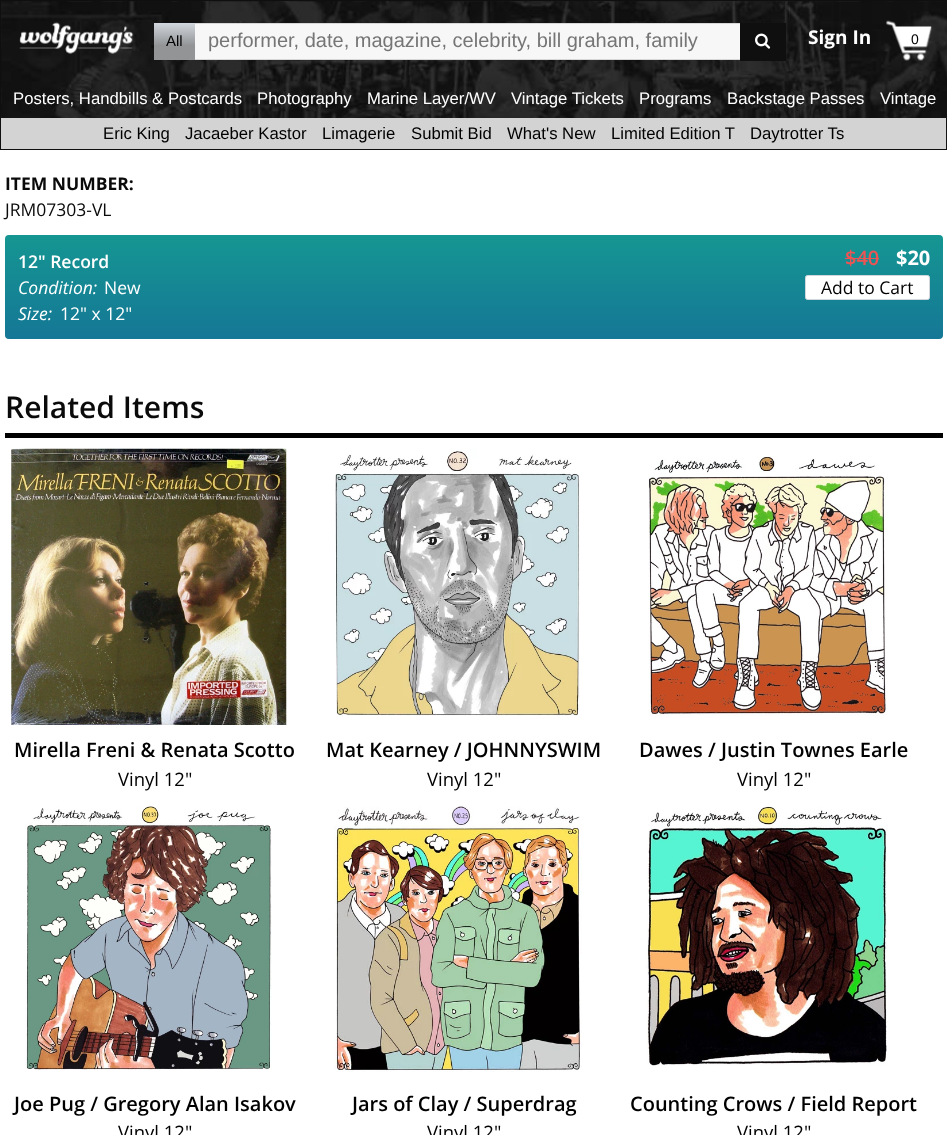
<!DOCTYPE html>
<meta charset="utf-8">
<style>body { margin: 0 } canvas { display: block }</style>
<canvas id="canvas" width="947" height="1135"></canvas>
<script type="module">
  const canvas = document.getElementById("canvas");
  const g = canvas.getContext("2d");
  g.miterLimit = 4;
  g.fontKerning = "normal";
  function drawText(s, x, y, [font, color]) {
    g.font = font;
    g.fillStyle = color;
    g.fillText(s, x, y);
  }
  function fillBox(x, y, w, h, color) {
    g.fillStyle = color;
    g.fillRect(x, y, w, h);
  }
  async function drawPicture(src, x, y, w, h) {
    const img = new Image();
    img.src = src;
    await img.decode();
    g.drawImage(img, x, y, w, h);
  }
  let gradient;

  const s1 = ["15px Liberation Sans", "#000000"];
  const s2 = ["20px Liberation Sans", "#757575"];
  const s3 = ["bold 19px Open Sans", "#FFFFFF"];
  const s4 = ["14px Liberation Sans", "#000000"];
  const s5 = ["16.7px Liberation Sans", "#FFFFFF"];
  const s6 = ["16.7px Liberation Sans", "#000000"];
  const s7 = ["bold 17.5px Open Sans", "#0A0A0A"];
  const s8 = ["17.5px Open Sans", "#0A0A0A"];
  const s9 = ["600 17.5px Open Sans", "#FFFFFF"];
  const s10 = ["600 20px Open Sans", "#EE5454"];
  const s11 = ["bold 20px Open Sans", "#FFFFFF"];
  const s12 = ["italic 17.5px Open Sans", "#FFFFFF"];
  const s13 = ["17.5px Open Sans", "#FFFFFF"];
  const s14 = ["17.5px Open Sans", "#000000"];
  const s15 = ["600 30px Open Sans", "#0A0A0A"];
  const s16 = ["600 20px Open Sans", "#000000"];
  const s17 = ["18.5px Open Sans", "#000000"];

  fillBox(0, 0, 947, 1135, "#FFFFFF");
  await drawPicture("pic1.png", 1, 1, 946, 148);
  g.strokeStyle = "#0F0F0F";
  g.strokeRect(0.5, 0.5, 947, 149);
  await drawPicture("pic2.png", 19, 22, 115, 32);
  gradient = g.createLinearGradient(174, 23, 174, 60);
  gradient.addColorStop(0, "#D2D7DD");
  gradient.addColorStop(0.61, "#929496");
  g.fillStyle = gradient;
  g.fillRect(154, 23, 41, 37);
  drawText("All", 166, 46, s1);
  fillBox(195, 24, 545, 35, "#F7F7F7");
  fillBox(195, 23, 545, 1, "#D7D7D7");
  fillBox(195, 59, 545, 1, "#D7D7D7");
  drawText("performer, date, magazine, celebrity, bill graham, family", 208, 47, s2);
  fillBox(740, 23, 46, 38, "#0F0F0F");
  await drawPicture("pic3.png", 755, 33, 16, 16);
  await drawPicture("pic4.png", 886, 20, 46, 41);
  drawText("Sign In", 808, 44, s3);
  drawText("0", 911, 44, s4);
  drawText("Posters, Handbills & Postcards", 13, 104, s5);
  drawText("Photography", 257, 104, s5);
  drawText("Marine Layer/WV", 367, 104, s5);
  drawText("Vintage Tickets", 511, 104, s5);
  drawText("Programs", 639, 104, s5);
  drawText("Backstage Passes", 727, 104, s5);
  drawText("Vintage", 880, 104, s5);
  fillBox(1, 118, 945, 31, "#D3D3D3");
  drawText("Eric King", 103, 139, s6);
  drawText("Jacaeber Kastor", 185, 139, s6);
  drawText("Limagerie", 322, 139, s6);
  drawText("Submit Bid", 411, 139, s6);
  drawText("What's New", 507, 139, s6);
  drawText("Limited Edition T", 611, 139, s6);
  drawText("Daytrotter Ts", 750, 139, s6);
  drawText("ITEM NUMBER:", 5, 190, s7);
  drawText("JRM07303-VL", 5, 216, s8);
  gradient = g.createLinearGradient(474, 339, 474, 235);
  gradient.addColorStop(0, "#157796");
  gradient.addColorStop(1, "#159692");
  g.fillStyle = gradient;
  g.beginPath();
  g.roundRect(5, 235, 938, 104, 4);
  g.fill();
  drawText("12\" Record", 18, 268, s9);
  drawText("$40", 845, 265, s10);
  fillBox(845, 258, 34, 1, "#EE5454");
  drawText("$20", 896, 265, s11);
  drawText("Condition:", 18, 294, s12);
  drawText("New", 104, 294, s13);
  g.beginPath();
  g.roundRect(805.5, 275.5, 124, 24, 2);
  g.fill();
  g.strokeStyle = "#D2D7DD";
  g.stroke();
  drawText("Add to Cart", 821, 294, s14);
  drawText("Size:", 18, 320, s12);
  drawText("12\" x 12\"", 60, 320, s13);
  fillBox(5, 433, 938, 5, "#000000");
  drawText("Related Items", 5, 418, s15);
  await drawPicture("pic5.png", 11, 448, 276, 277);
  drawText("Mirella Freni & Renata Scotto", 14, 757, s16);
  drawText("Vinyl 12\"", 118, 786, s17);
  await drawPicture("pic6.png", 335, 449, 245, 267);
  drawText("Mat Kearney / JOHNNYSWIM", 326, 757, s16);
  drawText("Vinyl 12\"", 427, 786, s17);
  await drawPicture("pic7.png", 648, 456, 239, 260);
  drawText("Dawes / Justin Townes Earle", 639, 757, s16);
  drawText("Vinyl 12\"", 737, 786, s17);
  await drawPicture("pic8.png", 25, 806, 247, 264);
  drawText("Joe Pug / Gregory Alan Isakov", 14, 1111, s16);
  drawText("Vinyl 12\"", 118, 1139, s17);
  await drawPicture("pic9.png", 334, 805, 248, 267);
  drawText("Jars of Clay / Superdrag", 352, 1111, s16);
  drawText("Vinyl 12\"", 427, 1139, s17);
  await drawPicture("pic10.png", 646, 806, 242, 260);
  drawText("Counting Crows / Field Report", 630, 1111, s16);
  drawText("Vinyl 12\"", 737, 1139, s17);
</script>
